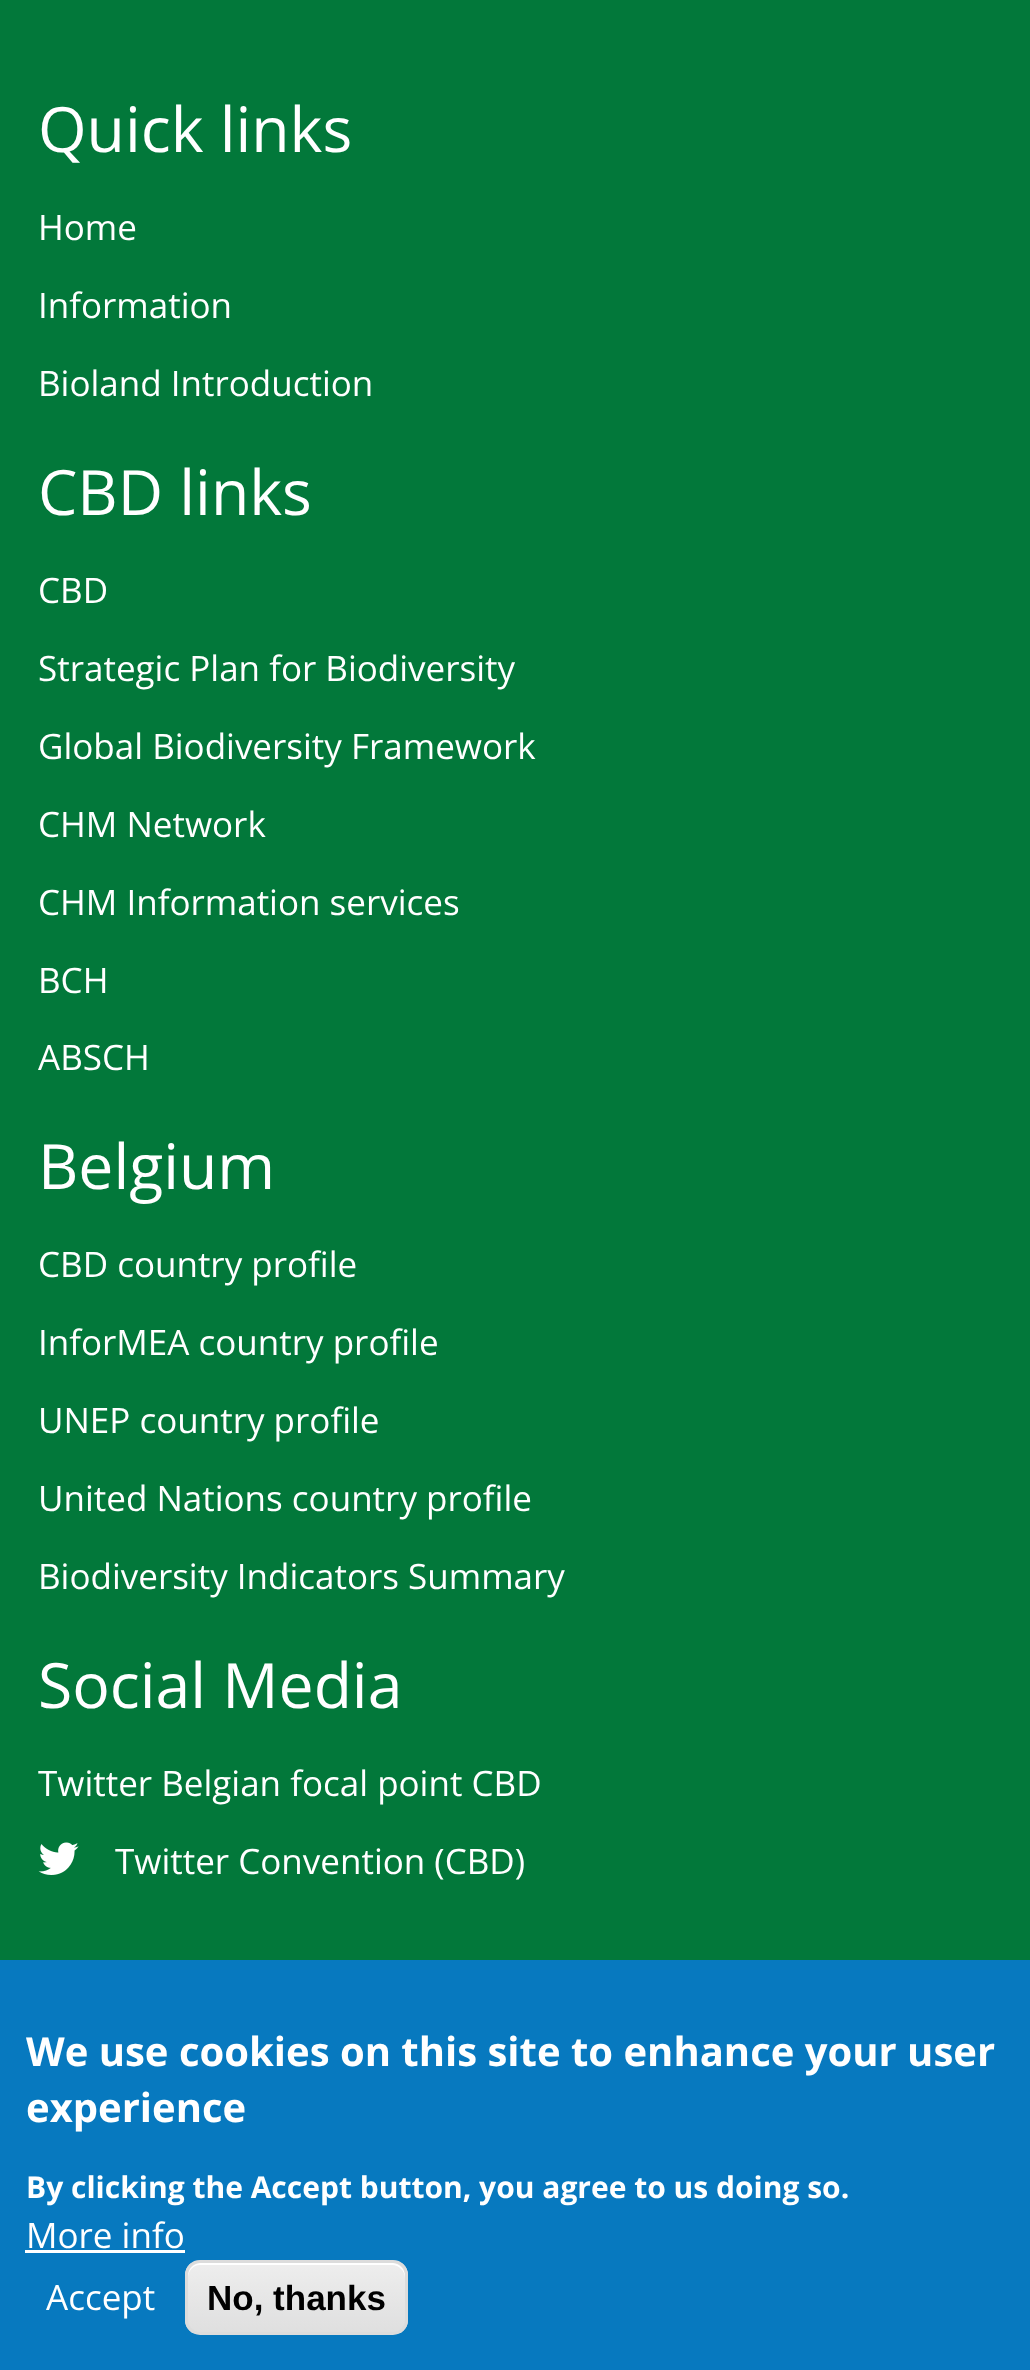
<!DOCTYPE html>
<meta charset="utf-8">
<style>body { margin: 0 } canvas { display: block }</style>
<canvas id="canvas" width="1030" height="2370"></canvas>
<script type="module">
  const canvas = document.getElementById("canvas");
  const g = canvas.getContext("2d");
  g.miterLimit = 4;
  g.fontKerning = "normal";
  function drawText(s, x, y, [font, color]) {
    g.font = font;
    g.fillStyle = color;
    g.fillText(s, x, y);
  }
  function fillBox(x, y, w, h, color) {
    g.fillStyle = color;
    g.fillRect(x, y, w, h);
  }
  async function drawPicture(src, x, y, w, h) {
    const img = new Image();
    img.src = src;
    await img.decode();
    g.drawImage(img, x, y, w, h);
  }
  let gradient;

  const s1 = ["62.5px Open Sans", "#FFFFFF"];
  const s2 = ["35px Open Sans", "#FFFFFF"];
  const s3 = ["bold 40px Open Sans", "#FFFFFF"];
  const s4 = ["bold 30px Open Sans", "#FFFFFF"];
  const s5 = ["bold 35px Liberation Sans", "#000000"];

  fillBox(0, 0, 1030, 2370, "#02783A");
  drawText("Quick links", 38, 152, s1);
  drawText("Home", 38, 240, s2);
  drawText("Information", 38, 318, s2);
  drawText("Bioland Introduction", 38, 396, s2);
  drawText("CBD links", 38, 515, s1);
  drawText("CBD", 38, 603, s2);
  drawText("Strategic Plan for Biodiversity", 38, 681, s2);
  drawText("Global Biodiversity Framework", 38, 759, s2);
  drawText("CHM Network", 38, 837, s2);
  drawText("CHM Information services", 38, 915, s2);
  drawText("BCH", 38, 993, s2);
  drawText("ABSCH", 38, 1070, s2);
  drawText("Belgium", 38, 1189, s1);
  drawText("CBD country profile", 38, 1277, s2);
  drawText("InforMEA country profile", 38, 1355, s2);
  drawText("UNEP country profile", 38, 1433, s2);
  drawText("United Nations country profile", 38, 1511, s2);
  drawText("Biodiversity Indicators Summary", 38, 1589, s2);
  drawText("Social Media", 38, 1708, s1);
  drawText("Twitter Belgian focal point CBD", 38, 1796, s2);
  await drawPicture("pic1.png", 38, 1842, 41, 33);
  drawText("Twitter Convention (CBD)", 115, 1874, s2);
  fillBox(0, 1960, 1030, 410, "#0779BF");
  drawText("We use cookies on this site to enhance your user", 26, 2066, s3);
  drawText("experience", 26, 2122, s3);
  drawText("By clicking the Accept button, you agree to us doing so.", 26, 2198, s4);
  drawText("More info", 26, 2248, s2);
  fillBox(25, 2250, 160, 3, "#FFFFFF");
  drawText("Accept", 46, 2310, s2);
  g.save();
  g.beginPath();
  g.roundRect(185, 2260, 223, 75, 15);
  g.clip();
  gradient = g.createLinearGradient(296, 2263, 296, 2333);
  gradient.addColorStop(0.05, "#EDEDED");
  gradient.addColorStop(1, "#DFDFDF");
  g.fillStyle = gradient;
  g.fillRect(185, 2263, 223, 70);
  g.restore();
  g.beginPath();
  g.moveTo(200, 2265);
  g.lineTo(392, 2265);
  g.bezierCurveTo(399, 2265, 405, 2271, 405, 2278);
  g.lineTo(405, 2276);
  g.bezierCurveTo(405, 2269, 399, 2263, 392, 2263);
  g.lineTo(201, 2263);
  g.bezierCurveTo(194, 2263, 188, 2269, 188, 2276);
  g.lineTo(188, 2278);
  g.bezierCurveTo(188, 2271, 193, 2265, 200, 2265);
  g.closePath();
  g.fill();
  g.beginPath();
  g.roundRect(186.5, 2261.5, 220, 72, 13.5);
  g.strokeStyle = "#DCDCDC";
  g.lineWidth = 3;
  g.stroke();
  drawText("No, thanks", 207, 2310, s5);
</script>
